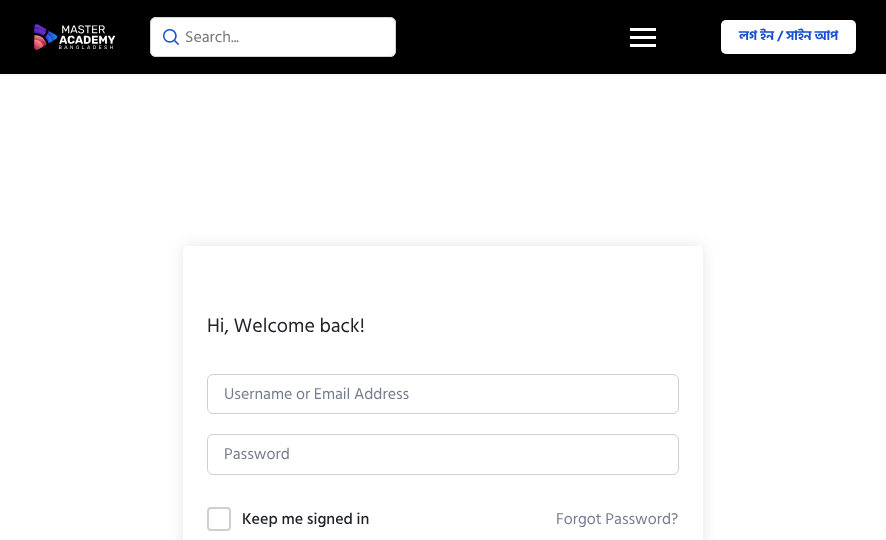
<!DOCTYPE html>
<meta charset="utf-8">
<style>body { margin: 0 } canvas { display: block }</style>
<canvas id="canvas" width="886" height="540"></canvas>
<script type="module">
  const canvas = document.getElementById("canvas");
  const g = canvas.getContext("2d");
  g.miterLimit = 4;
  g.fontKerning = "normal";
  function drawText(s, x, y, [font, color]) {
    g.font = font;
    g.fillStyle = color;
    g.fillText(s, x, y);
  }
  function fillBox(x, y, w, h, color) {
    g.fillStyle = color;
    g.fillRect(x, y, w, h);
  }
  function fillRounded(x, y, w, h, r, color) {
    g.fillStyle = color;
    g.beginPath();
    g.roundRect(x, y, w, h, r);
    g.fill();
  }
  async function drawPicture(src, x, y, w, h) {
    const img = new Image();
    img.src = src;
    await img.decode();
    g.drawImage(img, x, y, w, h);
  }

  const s1 = ["16px Hind Siliguri", "#757575"];
  const s2 = ["bold 13px Hind Siliguri", "#1950D1"];
  const s3 = ["20px Hind Siliguri", "#212327"];
  const s4 = ["16px Hind Siliguri", "#757C8E"];
  const s5 = ["500 16px Hind Siliguri", "#212327"];

  fillBox(0, 0, 886, 540, "#FFFFFF");
  fillBox(0, 0, 886, 74, "#000000");
  fillBox(0, 74, 886, 2, "#F8F8F8");
  await drawPicture("pic1.png", 34, 24, 82, 26);
  fillRounded(150, 17, 246, 40, 6, "#FFFFFF");
  await drawPicture("pic2.png", 163, 29, 16, 16);
  g.beginPath();
  g.roundRect(150.5, 17.5, 245, 39, 5.5);
  g.strokeStyle = "#D2D2D2";
  g.stroke();
  drawText("Search...", 185, 42, s1);
  fillBox(630, 36, 26, 3, "#FFFFFF");
  fillBox(630, 28, 26, 3, "#FFFFFF");
  fillBox(630, 44, 26, 3, "#FFFFFF");
  fillRounded(721, 20, 135, 34, 5, "#FFFFFF");
  drawText("লগ ইন / সাইন আপ", 739, 40, s2);
  g.save();
  g.beginPath();
  g.moveTo(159, 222);
  g.lineTo(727, 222);
  g.lineTo(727, 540);
  g.lineTo(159, 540);
  g.closePath();
  g.moveTo(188, 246);
  g.lineTo(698, 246);
  g.bezierCurveTo(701, 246, 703, 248, 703, 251);
  g.lineTo(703, 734);
  g.bezierCurveTo(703, 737, 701, 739, 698, 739);
  g.lineTo(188, 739);
  g.bezierCurveTo(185, 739, 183, 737, 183, 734);
  g.lineTo(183, 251);
  g.bezierCurveTo(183, 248, 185, 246, 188, 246);
  g.closePath();
  g.clip("evenodd");
  g.fillStyle = "rgba(0, 0, 0, 0.1)";
  g.filter = "blur(7.5px)";
  g.beginPath();
  g.roundRect(183, 246, 520, 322, 5);
  g.fill();
  g.filter = "none";
  g.restore();
  drawText("Hi, Welcome back!", 207, 332, s3);
  g.beginPath();
  g.roundRect(207.5, 374.5, 471, 39, 5.5);
  g.strokeStyle = "#CDCFD5";
  g.stroke();
  drawText("Username or Email Address", 224, 399, s4);
  g.beginPath();
  g.roundRect(207.5, 434.5, 471, 40, 5.5);
  g.stroke();
  drawText("Password", 224, 459, s4);
  g.beginPath();
  g.roundRect(208, 508, 22, 22, 3);
  g.lineWidth = 2;
  g.stroke();
  drawText("Keep me signed in", 242, 524, s5);
  drawText("Forgot Password?", 556, 524, s4);
</script>
